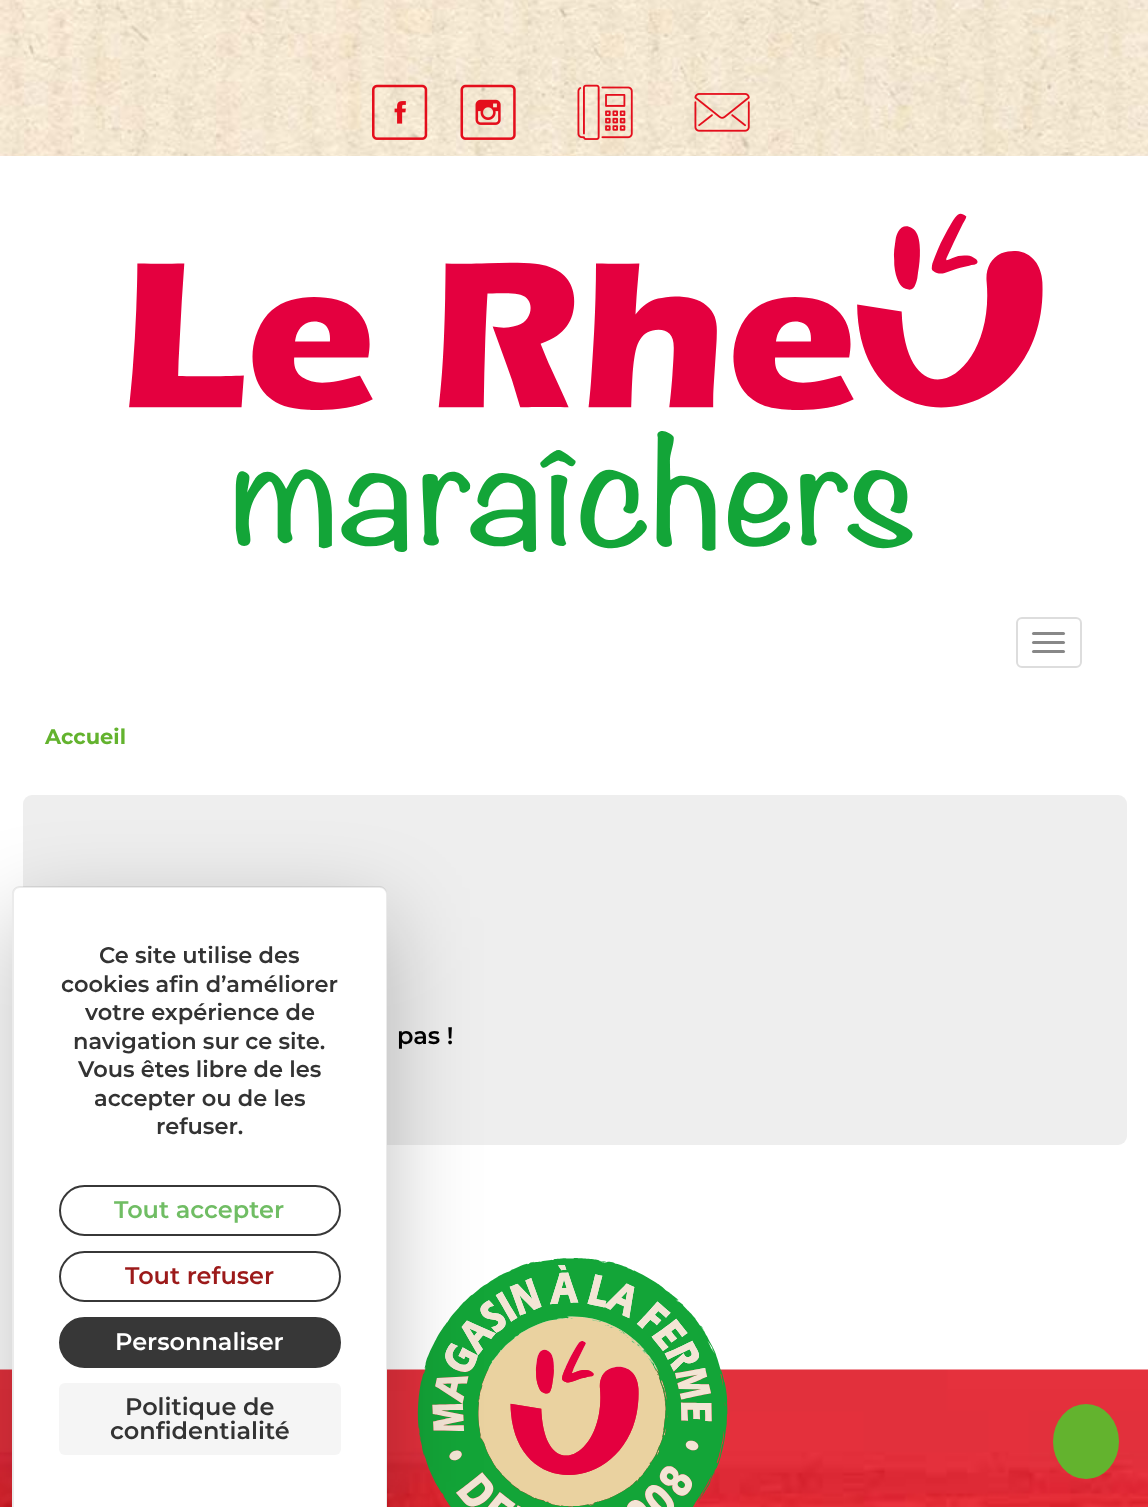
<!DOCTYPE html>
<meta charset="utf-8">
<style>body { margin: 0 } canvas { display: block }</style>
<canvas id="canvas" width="1148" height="1507"></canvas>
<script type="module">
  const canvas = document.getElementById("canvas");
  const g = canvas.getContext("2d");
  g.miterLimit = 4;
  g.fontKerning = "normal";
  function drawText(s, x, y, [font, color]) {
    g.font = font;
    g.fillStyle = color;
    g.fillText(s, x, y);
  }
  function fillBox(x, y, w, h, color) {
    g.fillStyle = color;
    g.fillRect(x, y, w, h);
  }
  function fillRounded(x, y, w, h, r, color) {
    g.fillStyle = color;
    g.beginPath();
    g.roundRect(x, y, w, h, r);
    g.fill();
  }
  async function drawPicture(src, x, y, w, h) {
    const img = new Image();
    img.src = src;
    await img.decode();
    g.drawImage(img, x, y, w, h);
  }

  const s1 = ["bold 21px Montserrat", "#63B32E"];
  const s2 = ["600 24px Montserrat", "#000000"];
  const s3 = ["600 22.5px Montserrat", "#333333"];
  const s4 = ["600 24px Montserrat", "#70BD64"];
  const s5 = ["600 24px Montserrat", "#9C1A1A"];
  const s6 = ["600 24px Montserrat", "#FFFFFF"];
  const s7 = ["600 24px Montserrat", "#333333"];

  fillBox(0, 0, 1148, 1507, "#FFFFFF");
  await drawPicture("pic1.png", 0, 0, 1148, 156);
  await drawPicture("pic2.png", 372, 84, 56, 56);
  await drawPicture("pic3.png", 460, 84, 56, 56);
  await drawPicture("pic4.png", 577, 84, 56, 56);
  await drawPicture("pic5.png", 694, 93, 56, 39);
  await drawPicture("pic6.png", 129, 213, 914, 339);
  g.beginPath();
  g.roundRect(1017, 618, 64, 49, 5);
  g.strokeStyle = "#DDDDDD";
  g.lineWidth = 2;
  g.stroke();
  fillRounded(1032, 632, 33, 3, 1.5, "#888888");
  fillRounded(1032, 641, 33, 3, 1.5, "#888888");
  fillRounded(1032, 650, 33, 3, 1.5, "#888888");
  drawText("Accueil", 45, 744, s1);
  fillRounded(23, 795, 1104, 350, 9, "#EEEEEE");
  drawText("pas !", 397, 1044, s2);
  await drawPicture("pic7.png", 0, 1369, 1148, 138);
  await drawPicture("pic8.png", 417, 1258, 311, 249);
  g.fillStyle = "rgba(0, 0, 0, 0.25)";
  g.filter = "blur(45px)";
  g.beginPath();
  g.roundRect(12, 917, 375, 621, 8);
  g.fill();
  g.filter = "none";
  g.fillStyle = "#FFFFFF";
  g.beginPath();
  g.moveTo(20, 887);
  g.lineTo(379, 887);
  g.bezierCurveTo(383.5, 887, 387, 890.5, 387, 895);
  g.lineTo(387, 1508);
  g.lineTo(12, 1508);
  g.lineTo(12, 895);
  g.bezierCurveTo(12, 890.5, 15.5, 887, 20, 887);
  g.closePath();
  g.fill();
  g.fillStyle = "rgba(0, 0, 0, 0.08)";
  g.beginPath();
  g.moveTo(20, 886);
  g.lineTo(380, 886);
  g.bezierCurveTo(384, 886, 387, 890, 387, 894);
  g.lineTo(387, 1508);
  g.lineTo(12, 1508);
  g.lineTo(12, 894);
  g.bezierCurveTo(12, 890, 15, 886, 20, 886);
  g.closePath();
  g.moveTo(20, 888);
  g.lineTo(380, 888);
  g.bezierCurveTo(383, 888, 386, 891, 386, 894);
  g.lineTo(386, 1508);
  g.lineTo(14, 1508);
  g.lineTo(14, 894);
  g.bezierCurveTo(14, 891, 16, 888, 20, 888);
  g.closePath();
  g.fill("evenodd");
  drawText("Ce site utilise des", 99, 963, s3);
  drawText("cookies afin d’améliorer", 61, 992, s3);
  drawText("votre expérience de", 85, 1020, s3);
  drawText("navigation sur ce site.", 73, 1049, s3);
  drawText("Vous êtes libre de les", 78, 1077, s3);
  drawText("accepter ou de les", 94, 1106, s3);
  drawText("refuser.", 156, 1134, s3);
  g.beginPath();
  g.roundRect(60, 1186, 280, 49, 24.5);
  g.strokeStyle = "#373737";
  g.stroke();
  drawText("Tout accepter", 114, 1218, s4);
  g.beginPath();
  g.roundRect(60, 1252, 280, 49, 24.5);
  g.stroke();
  drawText("Tout refuser", 125, 1284, s5);
  g.fillStyle = "#373737";
  g.beginPath();
  g.roundRect(60, 1318, 280, 49, 24.5);
  g.fill();
  g.stroke();
  drawText("Personnaliser", 115, 1350, s6);
  fillRounded(59, 1383, 282, 72, 6, "#F5F5F5");
  drawText("Politique de", 125, 1415, s7);
  drawText("confidentialité", 110, 1439, s7);
  g.fillStyle = "#63B32E";
  g.beginPath();
  g.ellipse(1086, 1441.5, 33, 37.5, 0, 0, Math.PI * 2);
  g.fill();
</script>
